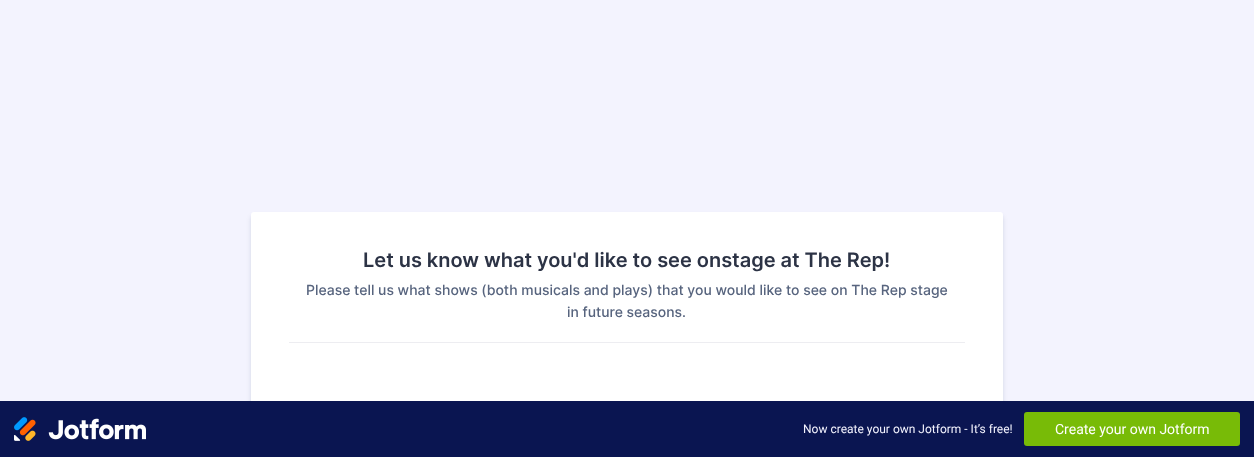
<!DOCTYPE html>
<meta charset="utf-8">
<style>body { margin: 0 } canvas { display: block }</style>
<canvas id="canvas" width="1254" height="457"></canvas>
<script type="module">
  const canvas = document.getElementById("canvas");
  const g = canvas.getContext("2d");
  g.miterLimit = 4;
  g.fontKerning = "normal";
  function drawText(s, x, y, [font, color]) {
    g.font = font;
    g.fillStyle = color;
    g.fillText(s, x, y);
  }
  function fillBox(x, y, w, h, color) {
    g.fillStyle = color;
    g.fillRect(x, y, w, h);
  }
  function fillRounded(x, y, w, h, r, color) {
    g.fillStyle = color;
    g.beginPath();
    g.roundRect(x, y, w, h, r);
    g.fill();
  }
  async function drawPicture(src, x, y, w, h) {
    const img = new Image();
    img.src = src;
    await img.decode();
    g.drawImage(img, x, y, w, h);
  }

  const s1 = ["600 20px Inter", "#2C3345"];
  const s2 = ["500 14px Inter", "#57647E"];
  const s3 = ["12px Roboto", "#F3F3FE"];
  const s4 = ["14px Roboto", "#FFFFFF"];

  fillBox(0, 0, 1254, 457, "#F3F3FE");
  g.fillStyle = "rgba(87, 100, 126, 0.21)";
  g.filter = "blur(2px)";
  g.beginPath();
  g.roundRect(251, 216, 752, 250, 3);
  g.fill();
  g.filter = "none";
  fillRounded(251, 212, 752, 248, 3, "#FFFFFF");
  fillBox(289, 342, 676, 1, "#EDEDF1");
  drawText("Let us know what you'd like to see onstage at The Rep!", 363, 267, s1);
  drawText("Please tell us what shows (both musicals and plays) that you would like to see on The Rep stage", 306, 295, s2);
  drawText("in future seasons.", 567, 317, s2);
  fillBox(0, 401, 1254, 56, "#0A1551");
  await drawPicture("pic1.png", 14, 417, 132, 24);
  drawText("Now create your own Jotform - It’s free!", 803, 433, s3);
  fillRounded(1024, 412, 216, 34, 3, "#78BB07");
  drawText("Create your own Jotform", 1055, 434, s4);
</script>
